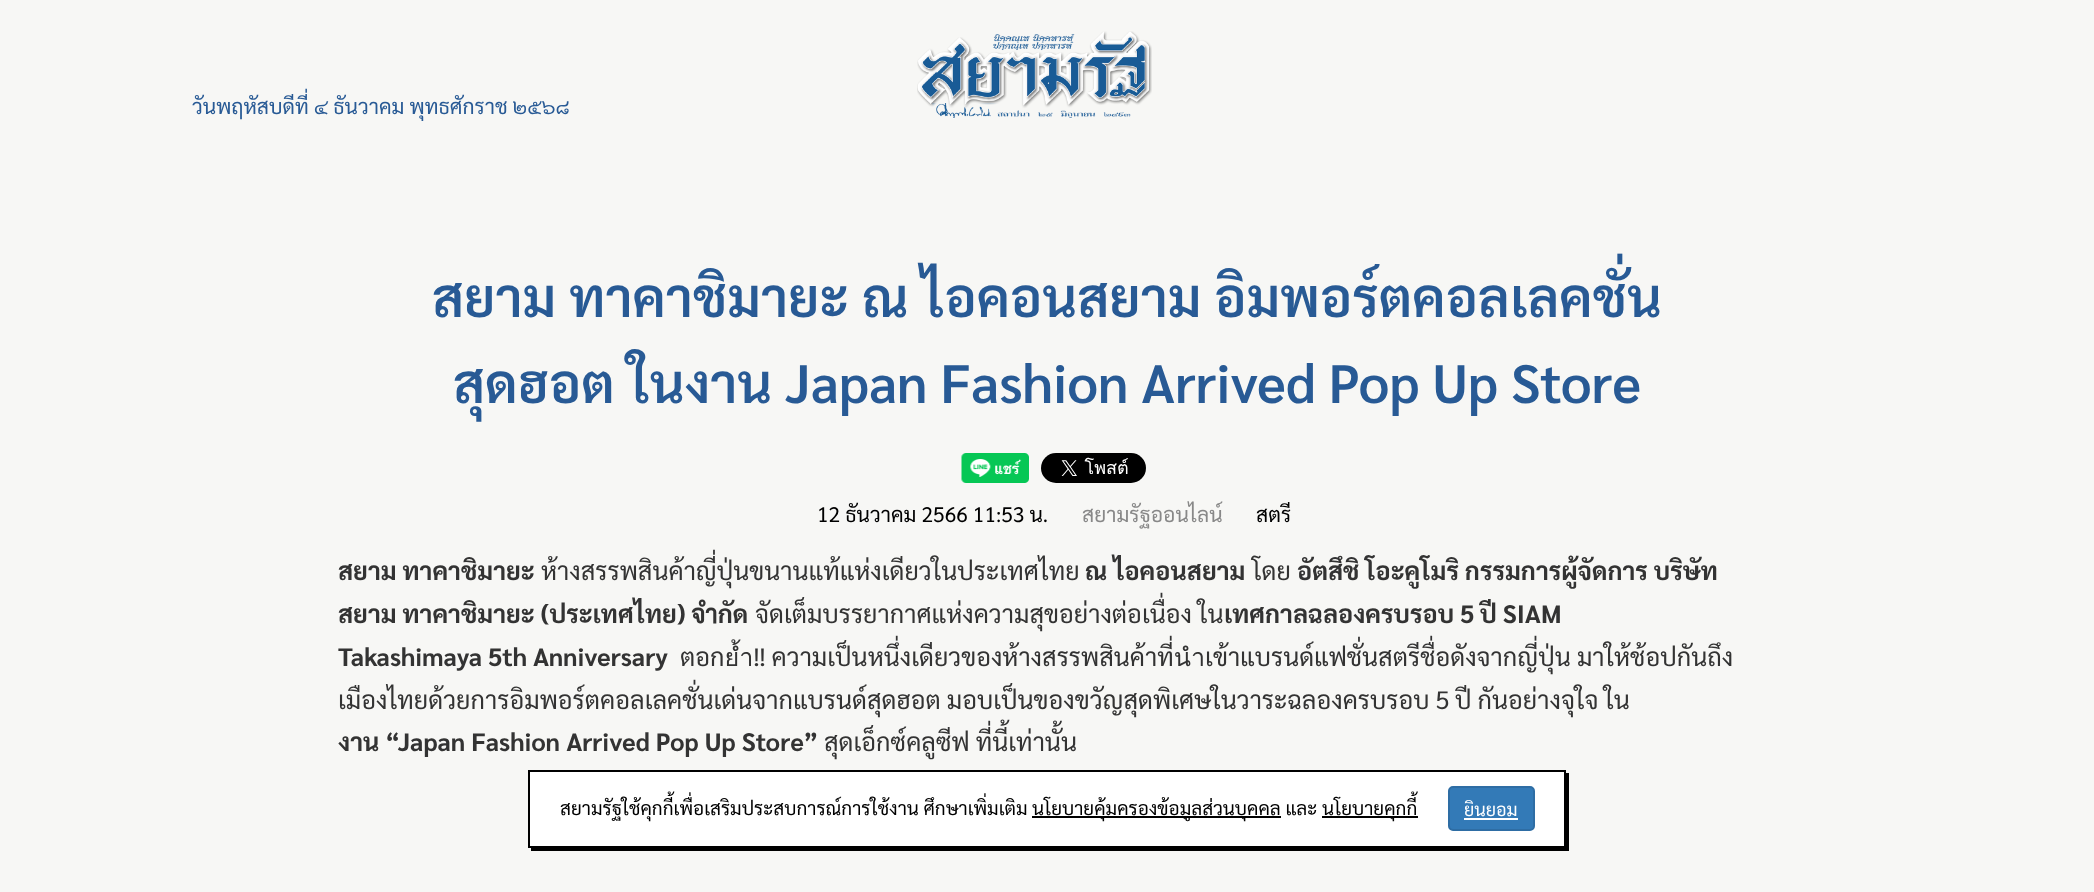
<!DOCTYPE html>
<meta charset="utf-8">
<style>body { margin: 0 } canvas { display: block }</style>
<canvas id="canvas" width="2094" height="892"></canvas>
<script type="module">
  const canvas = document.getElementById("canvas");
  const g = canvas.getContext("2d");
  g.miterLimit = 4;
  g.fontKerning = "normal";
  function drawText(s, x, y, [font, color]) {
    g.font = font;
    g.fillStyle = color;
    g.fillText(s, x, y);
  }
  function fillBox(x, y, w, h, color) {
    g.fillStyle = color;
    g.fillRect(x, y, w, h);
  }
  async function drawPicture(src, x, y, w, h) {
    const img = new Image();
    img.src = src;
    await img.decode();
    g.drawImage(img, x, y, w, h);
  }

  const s1 = ["21px Sarabun", "#285A95"];
  const s2 = ["600 54px Sarabun", "#285A95"];
  const s3 = ["21px Sarabun", "#000000"];
  const s4 = ["21px Sarabun", "#888888"];
  const s5 = ["bold 25.2px Sarabun", "#333333"];
  const s6 = ["25.2px Sarabun", "#333333"];
  const s7 = ["18.9px Sarabun", "#000000"];
  const s8 = ["18px Sarabun", "#FFFFFF"];

  fillBox(0, 0, 2094, 892, "#F7F7F5");
  drawText("วันพฤหัสบดีที่ ๔ ธันวาคม พุทธศักราช ๒๕๖๘", 192, 114, s1);
  await drawPicture("pic1.png", 917, 31, 235, 88);
  drawText("สยาม ทาคาชิมายะ ณ ไอคอนสยาม อิมพอร์ตคอลเลคชั่น", 432, 317, s2);
  drawText("สุดฮอต ในงาน Japan Fashion Arrived Pop Up Store", 453, 403, s2);
  await drawPicture("pic2.png", 961, 453, 68, 30);
  await drawPicture("pic3.png", 1041, 453, 105, 30);
  drawText("12 ธันวาคม 2566 11:53 น.", 817, 522, s3);
  drawText("สยามรัฐออนไลน์", 1082, 522, s4);
  drawText("สตรี", 1256, 522, s3);
  drawText("สยาม ทาคาชิมายะ", 338, 580, s5);
  drawText("ห้างสรรพสินค้าญี่ปุ่นขนานแท้แห่งเดียวในประเทศไทย", 541, 580, s6);
  drawText("ณ ไอคอนสยาม", 1085, 580, s5);
  drawText("โดย", 1252, 580, s6);
  drawText("อัตสึชิ โอะคูโมริ กรรมการผู้จัดการ บริษัท", 1297, 580, s5);
  drawText("สยาม ทาคาชิมายะ (ประเทศไทย) จำกัด", 338, 623, s5);
  drawText("จัดเต็มบรรยากาศแห่งความสุขอย่างต่อเนื่อง ใน", 755, 623, s6);
  drawText("เทศกาลฉลองครบรอบ 5 ปี SIAM", 1224, 623, s5);
  drawText("Takashimaya 5th Anniversary", 338, 666, s5);
  drawText("ตอกย้ำ!! ความเป็นหนึ่งเดียวของห้างสรรพสินค้าที่นำเข้าแบรนด์แฟชั่นสตรีชื่อดังจากญี่ปุ่น มาให้ช้อปกันถึง", 680, 666, s6);
  g.wordSpacing = "-0.25px";
  drawText("เมืองไทยด้วยการอิมพอร์ตคอลเลคชั่นเด่นจากแบรนด์สุดฮอต มอบเป็นของขวัญสุดพิเศษในวาระฉลองครบรอบ 5 ปี กันอย่างจุใจ ใน", 338, 709, s6);
  g.wordSpacing = "0.25px";
  drawText("งาน “Japan Fashion Arrived Pop Up Store”", 338, 751, s5);
  g.wordSpacing = "0px";
  drawText("สุดเอ็กซ์คลูซีฟ ที่นี้เท่านั้น", 824, 751, s6);
  g.fillStyle = "#000000";
  g.beginPath();
  g.moveTo(531, 848);
  g.lineTo(531, 851);
  g.lineTo(1569, 851);
  g.lineTo(1569, 773);
  g.lineTo(1566, 773);
  g.lineTo(1566, 848);
  g.closePath();
  g.fill();
  g.fillStyle = "#FFFFFF";
  g.beginPath();
  g.rect(529, 771, 1036, 76);
  g.fill();
  g.strokeStyle = "#000000";
  g.lineWidth = 2;
  g.stroke();
  drawText("สยามรัฐใช้คุกกี้เพื่อเสริมประสบการณ์การใช้งาน ศึกษาเพิ่มเติม", 560, 815, s7);
  fillBox(1032, 816, 249, 2, "#000000");
  drawText("นโยบายคุ้มครองข้อมูลส่วนบุคคล และ", 1032, 815, s7);
  fillBox(1322, 816, 96, 2, "#000000");
  drawText("นโยบายคุกกี้", 1322, 815, s7);
  g.fillStyle = "#337AB7";
  g.beginPath();
  g.roundRect(1449, 787, 85, 43, 4);
  g.fill();
  g.strokeStyle = "#2E6DA4";
  g.stroke();
  drawText("ยินยอม", 1464, 816, s8);
  fillBox(1464, 818, 54, 2, "#FFFFFF");
</script>
